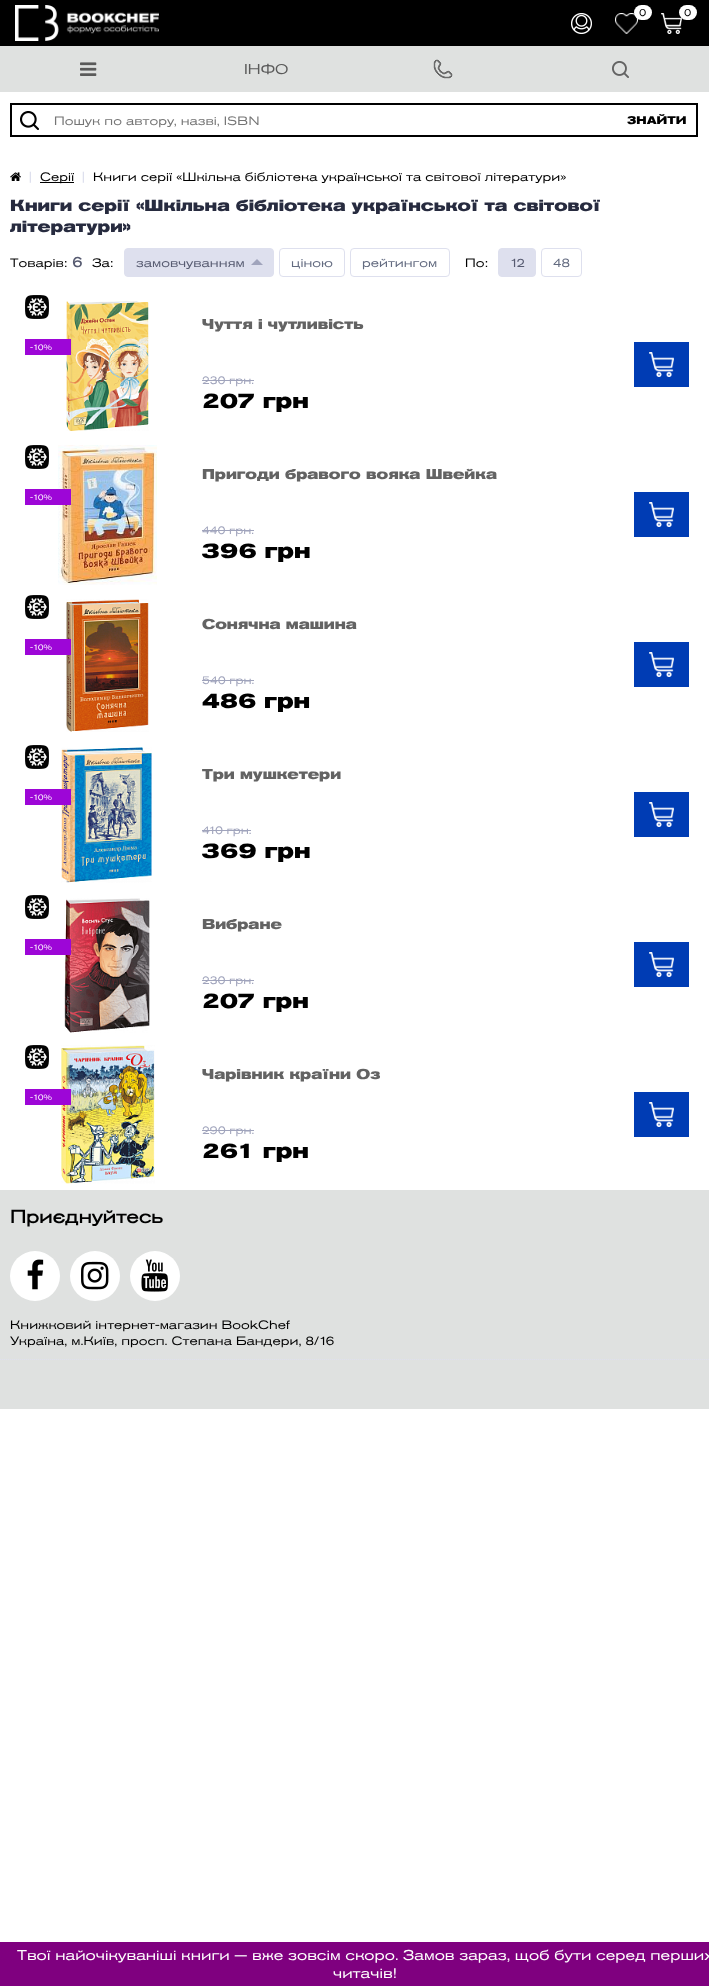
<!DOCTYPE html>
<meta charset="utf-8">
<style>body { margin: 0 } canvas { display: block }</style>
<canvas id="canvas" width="709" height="1986"></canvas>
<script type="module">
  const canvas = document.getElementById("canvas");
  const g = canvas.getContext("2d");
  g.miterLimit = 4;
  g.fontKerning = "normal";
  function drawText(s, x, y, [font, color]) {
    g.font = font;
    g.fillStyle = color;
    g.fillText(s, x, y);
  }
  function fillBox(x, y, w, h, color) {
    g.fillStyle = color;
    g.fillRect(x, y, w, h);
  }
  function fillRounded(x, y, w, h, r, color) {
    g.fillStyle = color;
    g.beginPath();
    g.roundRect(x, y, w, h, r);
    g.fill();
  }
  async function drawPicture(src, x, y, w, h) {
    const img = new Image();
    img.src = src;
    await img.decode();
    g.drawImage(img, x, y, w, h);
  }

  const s1 = ["10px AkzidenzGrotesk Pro", "#000000"];
  const s2 = ["bold 18px AkzidenzGrotesk Pro", "#000000"];
  const s3 = ["12px AkzidenzGrotesk Pro", "#000000"];
  const s4 = ["14px AkzidenzGrotesk Pro", "#5A5A5A"];
  const s5 = ["12px AkzidenzGrotesk Pro", "#757575"];
  const s6 = ["bold 11px 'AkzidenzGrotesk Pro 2'", "#000000"];
  const s7 = ["12px AkzidenzGrotesk Pro", "#DEE0EE"];
  const s8 = ["bold 16px 'AkzidenzGrotesk Pro 2'", "#272B3F"];
  const s9 = ["bold 14px AkzidenzGrotesk Pro", "#575B71"];
  const s10 = ["12px AkzidenzGrotesk Pro", "#575B71"];
  const s11 = ["12px AkzidenzGrotesk Pro", "#636B80"];
  const s12 = ["bold 14px 'AkzidenzGrotesk Pro 2'", "#636363"];
  const s13 = ["8px AkzidenzGrotesk Pro", "#FFFFFF"];
  const s14 = ["11px AkzidenzGrotesk Pro", "#A0A4BC"];
  const s15 = ["bold 21px 'AkzidenzGrotesk Pro 2'", "#000000"];
  const s16 = ["14px AkzidenzGrotesk Pro", "#FFFFFF"];

  fillBox(0, 0, 709, 1986, "#FFFFFF");
  fillBox(0, 1190, 709, 219, "#DFE1E0");
  fillBox(0, 0, 709, 46, "#000000");
  await drawPicture("pic1.png", 15, 5, 144, 36);
  await drawPicture("pic2.png", 571, 13, 21, 21);
  await drawPicture("pic3.png", 615, 13, 23, 21);
  fillRounded(634, 5, 18, 15, 7.5, "#FFFFFF");
  drawText("0", 639, 16, s1);
  await drawPicture("pic4.png", 661, 13, 21, 21);
  fillRounded(679, 5, 18, 15, 7.5, "#FFFFFF");
  drawText("0", 684, 16, s1);
  g.beginPath();
  g.moveTo(0, 1359.5);
  g.lineTo(709, 1359.5);
  g.strokeStyle = "#DEE0EE";
  g.setLineDash([1, 1]);
  g.stroke();
  drawText("Приєднуйтесь", 10, 1223, s2);
  g.fillStyle = "#FFFFFF";
  g.beginPath();
  g.arc(35, 1276, 25, 0, Math.PI * 2);
  g.fill();
  await drawPicture("pic5.png", 27, 1259, 17, 31);
  g.beginPath();
  g.arc(95, 1276, 25, 0, Math.PI * 2);
  g.fill();
  await drawPicture("pic6.png", 81, 1261, 28, 29);
  g.beginPath();
  g.arc(155, 1276, 25, 0, Math.PI * 2);
  g.fill();
  await drawPicture("pic7.png", 141, 1259, 27, 33);
  drawText("Книжковий інтернет-магазин BookChef", 10, 1329, s3);
  drawText("Україна, м.Київ, просп. Степана Бандери, 8/16", 10, 1345, s3);
  fillBox(0, 46, 709, 46, "#DFE1E0");
  await drawPicture("pic8.png", 80, 62, 17, 14);
  drawText("ІНФО", 244, 74, s4);
  await drawPicture("pic9.png", 433, 59, 20, 20);
  await drawPicture("pic10.png", 612, 61, 17, 17);
  g.strokeStyle = "#000000";
  g.lineWidth = 2;
  g.setLineDash([]);
  g.strokeRect(11, 104, 686, 32);
  await drawPicture("pic11.png", 20, 111, 19, 19);
  drawText("Пошук по автору, назві, ISBN", 54, 125, s5);
  drawText("ЗНАЙТИ", 627, 124, s6);
  await drawPicture("pic12.png", 10, 172, 11, 9);
  drawText("|", 29, 181, s7);
  fillBox(40, 182, 34, 1, "#000000");
  drawText("Серії", 40, 181, s3);
  drawText("|", 82, 181, s7);
  drawText("Книги серії «Шкільна бібліотека української та світової літератури»", 93, 181, s3);
  drawText("Книги серії «Шкільна бібліотека української та світової", 10, 211, s8);
  drawText("літератури»", 10, 232, s8);
  drawText("Товарів:", 10, 267, s3);
  drawText("6", 72, 267, s9);
  drawText("За:", 92, 267, s3);
  g.fillStyle = "#DEE0EE";
  g.beginPath();
  g.roundRect(124.5, 248.5, 149, 28, 3.5);
  g.fill();
  g.strokeStyle = "#DEE0EE";
  g.lineWidth = 1;
  g.stroke();
  drawText("замовчуванням", 136, 267, s10);
  g.fillStyle = "#A0A4BC";
  g.beginPath();
  g.moveTo(263, 265);
  g.lineTo(251, 265);
  g.lineTo(257, 259);
  g.closePath();
  g.fill();
  g.beginPath();
  g.roundRect(279.5, 248.5, 65, 28, 3.5);
  g.stroke();
  drawText("ціною", 291, 267, s11);
  g.beginPath();
  g.roundRect(350.5, 248.5, 99, 28, 3.5);
  g.stroke();
  drawText("рейтингом", 362, 267, s11);
  drawText("По:", 465, 267, s3);
  g.fillStyle = "#DEE0EE";
  g.beginPath();
  g.roundRect(498.5, 248.5, 37, 28, 3.5);
  g.fill();
  g.stroke();
  drawText("12", 510, 267, s10);
  g.beginPath();
  g.roundRect(541.5, 248.5, 40, 28, 3.5);
  g.stroke();
  drawText("48", 553, 267, s11);
  drawText("Чуття і чутливість", 202, 329, s12);
  await drawPicture("pic13.png", 25, 295, 24, 24);
  await drawPicture("pic14.png", 66, 301, 83, 130);
  fillBox(25, 339, 46, 16, "#9D06D7");
  drawText("-10%", 30, 350, s13);
  fillBox(634, 342, 55, 45, "#003CB4");
  await drawPicture("pic15.png", 649, 352, 25, 25);
  drawText("230 грн.", 202, 384, s14);
  fillBox(202, 380, 52, 1, "#A0A4BC");
  drawText("207 грн", 202, 408, s15);
  drawText("Пригоди бравого вояка Швейка", 202, 479, s12);
  await drawPicture("pic13.png", 25, 445, 24, 24);
  await drawPicture("pic16.png", 58, 445, 99, 140);
  fillBox(25, 489, 46, 16, "#9D06D7");
  drawText("-10%", 30, 500, s13);
  fillBox(634, 492, 55, 45, "#003CB4");
  await drawPicture("pic15.png", 649, 502, 25, 25);
  drawText("440 грн.", 202, 534, s14);
  fillBox(202, 530, 52, 1, "#A0A4BC");
  drawText("396 грн", 202, 558, s15);
  drawText("Сонячна машина", 202, 629, s12);
  await drawPicture("pic13.png", 25, 595, 24, 24);
  await drawPicture("pic17.png", 66, 599, 83, 133);
  fillBox(25, 639, 46, 16, "#9D06D7");
  drawText("-10%", 30, 650, s13);
  fillBox(634, 642, 55, 45, "#003CB4");
  await drawPicture("pic15.png", 649, 652, 25, 25);
  drawText("540 грн.", 202, 684, s14);
  fillBox(202, 680, 52, 1, "#A0A4BC");
  drawText("486 грн", 202, 708, s15);
  drawText("Три мушкетери", 202, 779, s12);
  await drawPicture("pic13.png", 25, 745, 24, 24);
  await drawPicture("pic18.png", 61, 747, 91, 136);
  fillBox(25, 789, 46, 16, "#9D06D7");
  drawText("-10%", 30, 800, s13);
  fillBox(634, 792, 55, 45, "#003CB4");
  await drawPicture("pic15.png", 649, 802, 25, 25);
  drawText("410 грн.", 202, 834, s14);
  fillBox(202, 830, 49, 1, "#A0A4BC");
  drawText("369 грн", 202, 858, s15);
  drawText("Вибране", 202, 929, s12);
  await drawPicture("pic13.png", 25, 895, 24, 24);
  await drawPicture("pic19.png", 64, 898, 86, 135);
  fillBox(25, 939, 46, 16, "#9D06D7");
  drawText("-10%", 30, 950, s13);
  fillBox(634, 942, 55, 45, "#003CB4");
  await drawPicture("pic15.png", 649, 952, 25, 25);
  drawText("230 грн.", 202, 984, s14);
  fillBox(202, 980, 52, 1, "#A0A4BC");
  drawText("207 грн", 202, 1008, s15);
  drawText("Чарівник країни Оз", 202, 1079, s12);
  await drawPicture("pic13.png", 25, 1045, 24, 24);
  await drawPicture("pic20.png", 61, 1045, 94, 139);
  fillBox(25, 1089, 46, 16, "#9D06D7");
  drawText("-10%", 30, 1100, s13);
  fillBox(634, 1092, 55, 45, "#003CB4");
  await drawPicture("pic15.png", 649, 1102, 25, 25);
  drawText("290 грн.", 202, 1134, s14);
  fillBox(202, 1130, 52, 1, "#A0A4BC");
  drawText("261 грн", 202, 1158, s15);
  fillBox(0, 1942, 709, 44, "#7F007F");
  drawText("Твої найочікуваніші книги — вже зовсім скоро. Замов зараз, щоб бути серед перших", 17, 1960, s16);
  drawText("читачів!", 333, 1978, s16);
</script>
